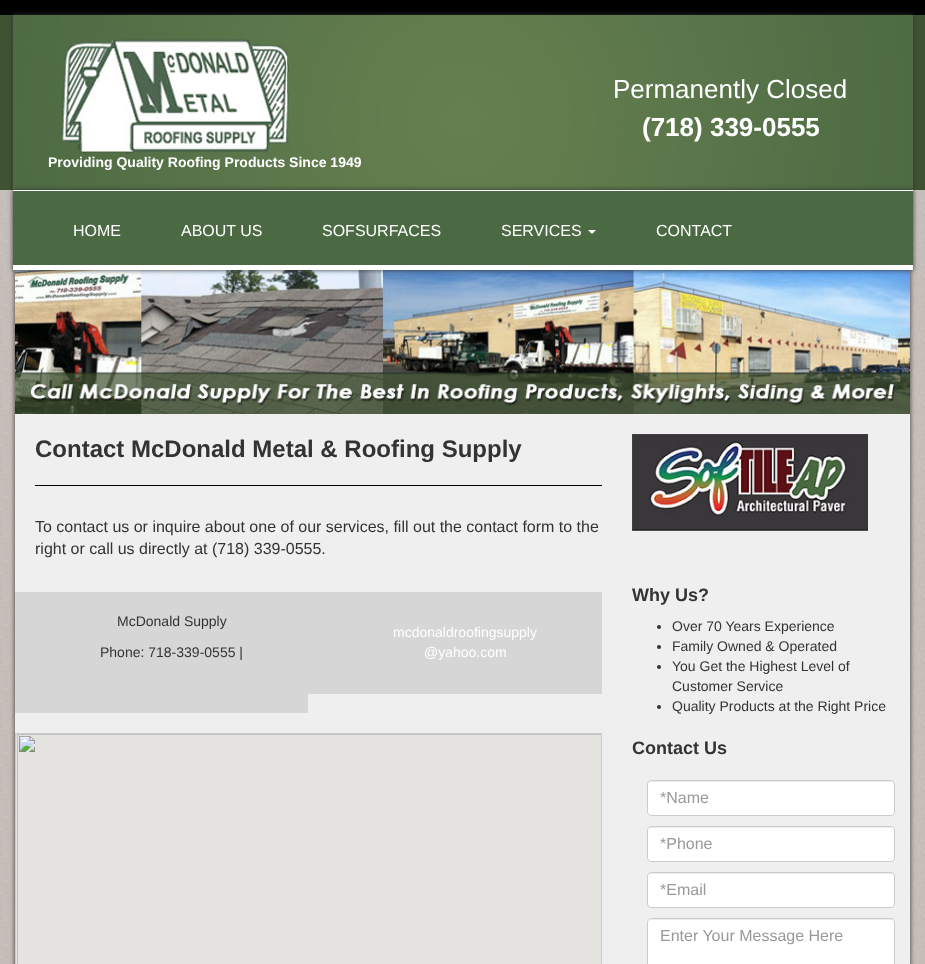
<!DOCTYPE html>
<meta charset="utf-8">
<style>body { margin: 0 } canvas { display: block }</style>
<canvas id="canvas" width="925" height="964"></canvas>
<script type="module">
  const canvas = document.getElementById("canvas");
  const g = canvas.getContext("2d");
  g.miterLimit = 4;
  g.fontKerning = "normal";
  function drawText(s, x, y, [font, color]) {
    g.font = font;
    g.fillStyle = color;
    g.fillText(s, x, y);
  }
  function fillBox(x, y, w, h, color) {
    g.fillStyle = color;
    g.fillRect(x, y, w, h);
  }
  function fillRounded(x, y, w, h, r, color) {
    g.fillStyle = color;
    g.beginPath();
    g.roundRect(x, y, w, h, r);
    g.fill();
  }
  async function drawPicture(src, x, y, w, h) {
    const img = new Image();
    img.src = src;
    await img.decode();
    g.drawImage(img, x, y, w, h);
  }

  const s1 = ["26px Liberation Sans", "#FFFFFF"];
  const s2 = ["bold 26px Liberation Sans", "#FFFFFF"];
  const s3 = ["bold 14px Liberation Sans", "#FFFFFF"];
  const s4 = ["16px Liberation Sans", "#FFFFFF"];
  const s5 = ["bold 24px Liberation Sans", "#333333"];
  const s6 = ["16px Liberation Sans", "#333333"];
  const s7 = ["14px Liberation Sans", "#333333"];
  const s8 = ["14px Liberation Sans", "#FFFFFF"];
  const s9 = ["bold 18px Liberation Sans", "#333333"];
  const s10 = ["16px Liberation Sans", "#999999"];

  fillBox(0, 0, 925, 964, "#3F5332");
  fillBox(0, 0, 925, 15, "#000000");
  g.fillStyle = "#333333";
  g.filter = "blur(2.5px)";
  g.beginPath();
  g.rect(13, 15, 900, 280);
  g.fill();
  g.filter = "none";
  await drawPicture("pic1.png", 13, 15, 900, 175);
  drawText("Permanently Closed", 613, 98, s1);
  drawText("(718) 339-0555", 642, 136, s2);
  await drawPicture("pic2.png", 59, 38, 230, 116);
  drawText("Providing Quality Roofing Products Since 1949", 48, 167, s3);
  await drawPicture("pic3.png", 0, 190, 925, 774);
  g.fillStyle = "#333333";
  g.filter = "blur(2.5px)";
  g.beginPath();
  g.rect(15, 265, 895, 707);
  g.fill();
  g.filter = "none";
  await drawPicture("pic4.png", 15, 270, 895, 144);
  g.filter = "blur(2.5px)";
  g.beginPath();
  g.rect(13, 190, 900, 80);
  g.fill();
  g.filter = "none";
  fillBox(13, 191, 900, 74, "#4B6943");
  fillBox(13, 190, 900, 1, "#FFFFFF");
  fillBox(13, 265, 900, 5, "#FFFFFF");
  drawText("HOME", 73, 236, s4);
  drawText("ABOUT US", 181, 236, s4);
  drawText("SOFSURFACES", 322, 236, s4);
  drawText("SERVICES", 501, 236, s4);
  g.beginPath();
  g.moveTo(588, 230);
  g.lineTo(596, 230);
  g.lineTo(592, 234);
  g.closePath();
  g.fill();
  drawText("CONTACT", 656, 236, s4);
  fillBox(15, 414, 895, 550, "#EFEFEF");
  drawText("Contact McDonald Metal & Roofing Supply", 35, 457, s5);
  fillBox(35, 485, 567, 1, "#000000");
  drawText("To contact us or inquire about one of our services, fill out the contact form to the", 35, 532, s6);
  drawText("right or call us directly at (718) 339-0555.", 35, 554, s6);
  fillBox(15, 592, 293, 121, "#D6D6D6");
  drawText("McDonald Supply", 117, 626, s7);
  drawText("Phone: 718-339-0555 |", 100, 657, s7);
  fillBox(308, 592, 294, 102, "#D6D6D6");
  drawText("mcdonaldroofingsupply", 393, 637, s8);
  drawText("@yahoo.com", 424, 657, s8);
  g.strokeStyle = "#CCCCCC";
  g.strokeRect(15.5, 733.5, 586, 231);
  await drawPicture("pic5.png", 16, 734, 585, 230);
  await drawPicture("pic6.png", 632, 434, 236, 97);
  drawText("Why Us?", 632, 601, s9);
  g.beginPath();
  g.arc(659, 627, 2, 0, Math.PI * 2);
  g.fill();
  drawText("Over 70 Years Experience", 672, 631, s7);
  g.beginPath();
  g.arc(659, 647, 2, 0, Math.PI * 2);
  g.fill();
  drawText("Family Owned & Operated", 672, 651, s7);
  g.beginPath();
  g.arc(659, 667, 2, 0, Math.PI * 2);
  g.fill();
  drawText("You Get the Highest Level of", 672, 671, s7);
  drawText("Customer Service", 672, 691, s7);
  g.beginPath();
  g.arc(659, 707, 2, 0, Math.PI * 2);
  g.fill();
  drawText("Quality Products at the Right Price", 672, 711, s7);
  drawText("Contact Us", 632, 754, s9);
  fillRounded(647, 780, 248, 36, 4, "#FFFFFF");
  g.fillStyle = "#ECECEC";
  g.beginPath();
  g.moveTo(651, 782);
  g.lineTo(892, 782);
  g.lineTo(894, 783);
  g.lineTo(894, 785);
  g.bezierCurveTo(894, 783, 893, 781, 891, 781);
  g.lineTo(651, 781);
  g.bezierCurveTo(649, 781, 648, 783, 648, 785);
  g.bezierCurveTo(648, 783, 649, 782, 651, 782);
  g.closePath();
  g.fill();
  g.beginPath();
  g.roundRect(647.5, 780.5, 247, 35, 3.5);
  g.stroke();
  drawText("*Name", 660, 803, s10);
  fillRounded(647, 826, 248, 36, 4, "#FFFFFF");
  g.fillStyle = "#ECECEC";
  g.beginPath();
  g.moveTo(651, 828);
  g.lineTo(892, 828);
  g.lineTo(894, 829);
  g.lineTo(894, 831);
  g.bezierCurveTo(894, 829, 893, 827, 891, 827);
  g.lineTo(651, 827);
  g.bezierCurveTo(649, 827, 648, 829, 648, 831);
  g.bezierCurveTo(648, 829, 649, 828, 651, 828);
  g.closePath();
  g.fill();
  g.beginPath();
  g.roundRect(647.5, 826.5, 247, 35, 3.5);
  g.stroke();
  drawText("*Phone", 660, 849, s10);
  fillRounded(647, 872, 248, 36, 4, "#FFFFFF");
  g.fillStyle = "#ECECEC";
  g.beginPath();
  g.moveTo(651, 874);
  g.lineTo(892, 874);
  g.lineTo(894, 875);
  g.lineTo(894, 877);
  g.bezierCurveTo(894, 875, 893, 873, 891, 873);
  g.lineTo(651, 873);
  g.bezierCurveTo(649, 873, 648, 875, 648, 877);
  g.bezierCurveTo(648, 875, 649, 874, 651, 874);
  g.closePath();
  g.fill();
  g.beginPath();
  g.roundRect(647.5, 872.5, 247, 35, 3.5);
  g.stroke();
  drawText("*Email", 660, 895, s10);
  fillRounded(647, 918, 248, 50, 4, "#FFFFFF");
  g.fillStyle = "#ECECEC";
  g.beginPath();
  g.moveTo(651, 920);
  g.lineTo(892, 920);
  g.lineTo(894, 921);
  g.lineTo(894, 923);
  g.bezierCurveTo(894, 921, 893, 919, 891, 919);
  g.lineTo(651, 919);
  g.bezierCurveTo(649, 919, 648, 921, 648, 923);
  g.bezierCurveTo(648, 921, 649, 920, 651, 920);
  g.closePath();
  g.fill();
  g.beginPath();
  g.roundRect(647.5, 918.5, 247, 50, 3.5);
  g.stroke();
  drawText("Enter Your Message Here", 660, 941, s10);
</script>
